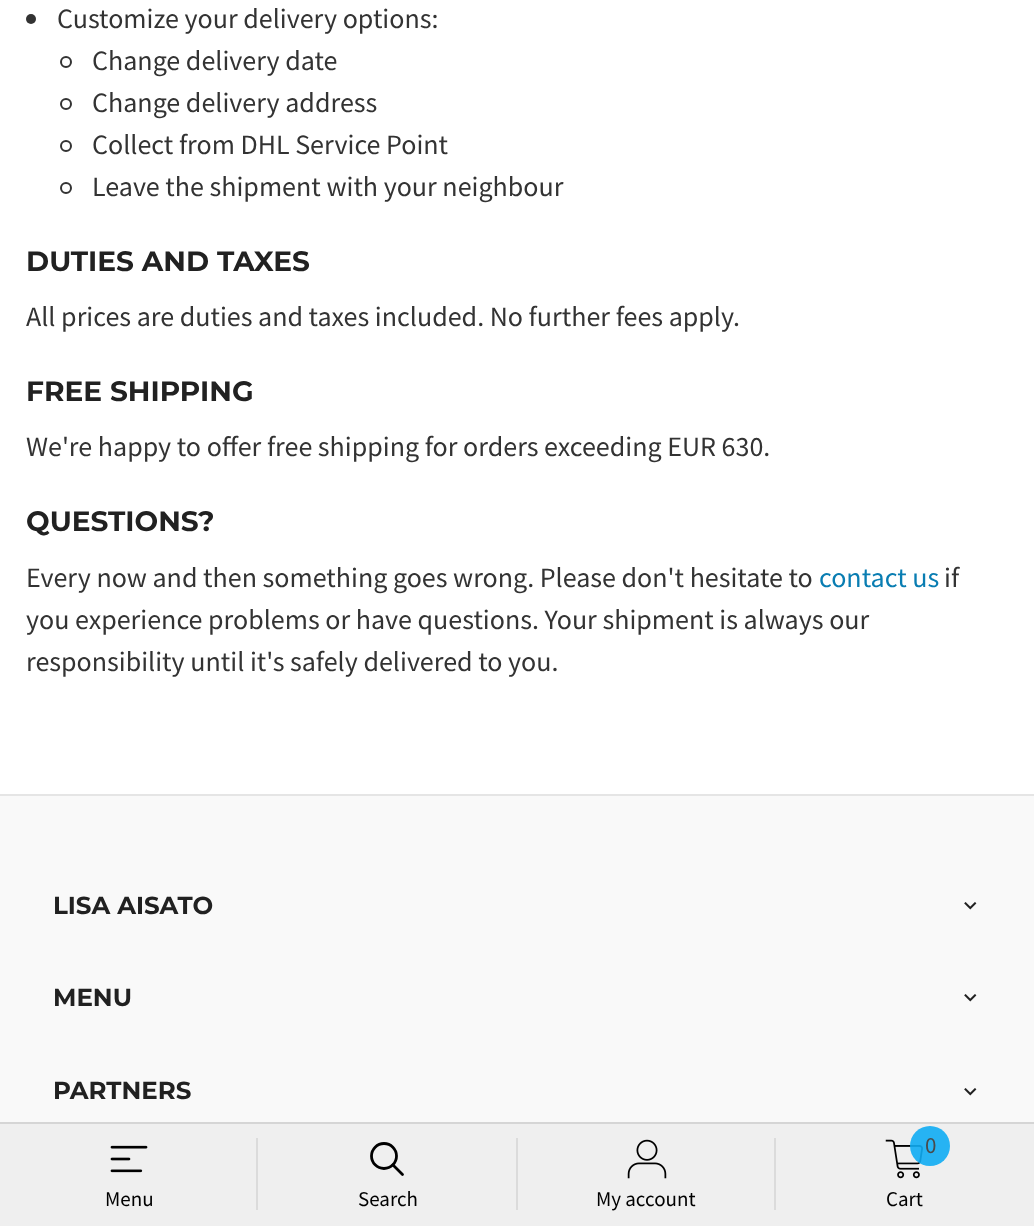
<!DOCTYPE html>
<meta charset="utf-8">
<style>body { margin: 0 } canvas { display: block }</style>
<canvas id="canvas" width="1034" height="1226"></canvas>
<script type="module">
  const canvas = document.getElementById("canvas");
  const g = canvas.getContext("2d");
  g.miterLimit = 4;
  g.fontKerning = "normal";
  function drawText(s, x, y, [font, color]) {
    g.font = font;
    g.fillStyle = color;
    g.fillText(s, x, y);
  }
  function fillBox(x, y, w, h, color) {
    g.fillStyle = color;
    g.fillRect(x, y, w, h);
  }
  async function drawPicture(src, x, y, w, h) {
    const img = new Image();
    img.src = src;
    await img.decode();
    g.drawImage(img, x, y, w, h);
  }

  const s1 = ["28px Source Sans Pro", "#333333"];
  const s2 = ["bold 28px Montserrat", "#212121"];
  const s3 = ["28px Source Sans Pro", "#097DB2"];
  const s4 = ["bold 24.5px Montserrat", "#212121"];
  const s5 = ["21px Source Sans Pro", "#000000"];
  const s6 = ["23px Source Sans Pro", "#4A4A4A"];

  fillBox(0, 0, 1034, 1226, "#FFFFFF");
  g.fillStyle = "#333333";
  g.beginPath();
  g.arc(31, 19, 5, 0, Math.PI * 2);
  g.fill();
  drawText("Customize your delivery options:", 57, 28, s1);
  g.beginPath();
  g.arc(66, 62, 5, 0, Math.PI * 2);
  g.strokeStyle = "#333333";
  g.lineWidth = 2;
  g.stroke();
  drawText("Change delivery date", 92, 70, s1);
  g.beginPath();
  g.arc(66, 104, 5, 0, Math.PI * 2);
  g.stroke();
  drawText("Change delivery address", 92, 112, s1);
  g.beginPath();
  g.arc(66, 146, 5, 0, Math.PI * 2);
  g.stroke();
  drawText("Collect from DHL Service Point", 92, 154, s1);
  g.beginPath();
  g.arc(66, 188, 5, 0, Math.PI * 2);
  g.stroke();
  drawText("Leave the shipment with your neighbour", 92, 196, s1);
  drawText("DUTIES AND TAXES", 26, 271, s2);
  drawText("All prices are duties and taxes included. No further fees apply.", 26, 326, s1);
  drawText("FREE SHIPPING", 26, 401, s2);
  drawText("We're happy to offer free shipping for orders exceeding EUR 630.", 26, 456, s1);
  drawText("QUESTIONS?", 26, 531, s2);
  drawText("Every now and then something goes wrong. Please don't hesitate to", 26, 587, s1);
  drawText("contact us", 819, 587, s3);
  drawText("if", 944, 587, s1);
  drawText("you experience problems or have questions. Your shipment is always our", 26, 629, s1);
  drawText("responsibility until it's safely delivered to you.", 26, 671, s1);
  fillBox(0, 796, 1034, 326, "#F9F9F9");
  fillBox(0, 794, 1034, 2, "#E5E5E5");
  drawText("LISA AISATO", 53, 914, s4);
  await drawPicture("pic1.png", 964, 902, 13, 8);
  drawText("MENU", 53, 1006, s4);
  await drawPicture("pic1.png", 964, 994, 13, 8);
  drawText("PARTNERS", 53, 1099, s4);
  await drawPicture("pic1.png", 964, 1088, 13, 8);
  fillBox(0, 1124, 1034, 102, "#EFEFEF");
  fillBox(0, 1122, 1034, 2, "#D5D5D5");
  await drawPicture("pic2.png", 110, 1145, 38, 28);
  drawText("Menu", 105, 1206, s5);
  fillBox(256, 1138, 2, 72, "#DBDBDB");
  g.beginPath();
  g.arc(384, 1156, 12.5, 0, Math.PI * 2);
  g.strokeStyle = "#000000";
  g.lineWidth = 2.8;
  g.stroke();
  g.beginPath();
  g.moveTo(402.5, 1174.5);
  g.lineTo(393, 1165);
  g.lineCap = "round";
  g.stroke();
  drawText("Search", 358, 1206, s5);
  fillBox(516, 1138, 2, 72, "#DBDBDB");
  await drawPicture("pic3.png", 627, 1139, 40, 40);
  drawText("My account", 596, 1206, s5);
  fillBox(774, 1138, 2, 72, "#DBDBDB");
  await drawPicture("pic4.png", 885, 1139, 38, 40);
  g.fillStyle = "rgba(15, 172, 243, 0.9)";
  g.beginPath();
  g.arc(930, 1146, 20, 0, Math.PI * 2);
  g.fill();
  drawText("0", 925, 1153, s6);
  drawText("Cart", 886, 1206, s5);
</script>
